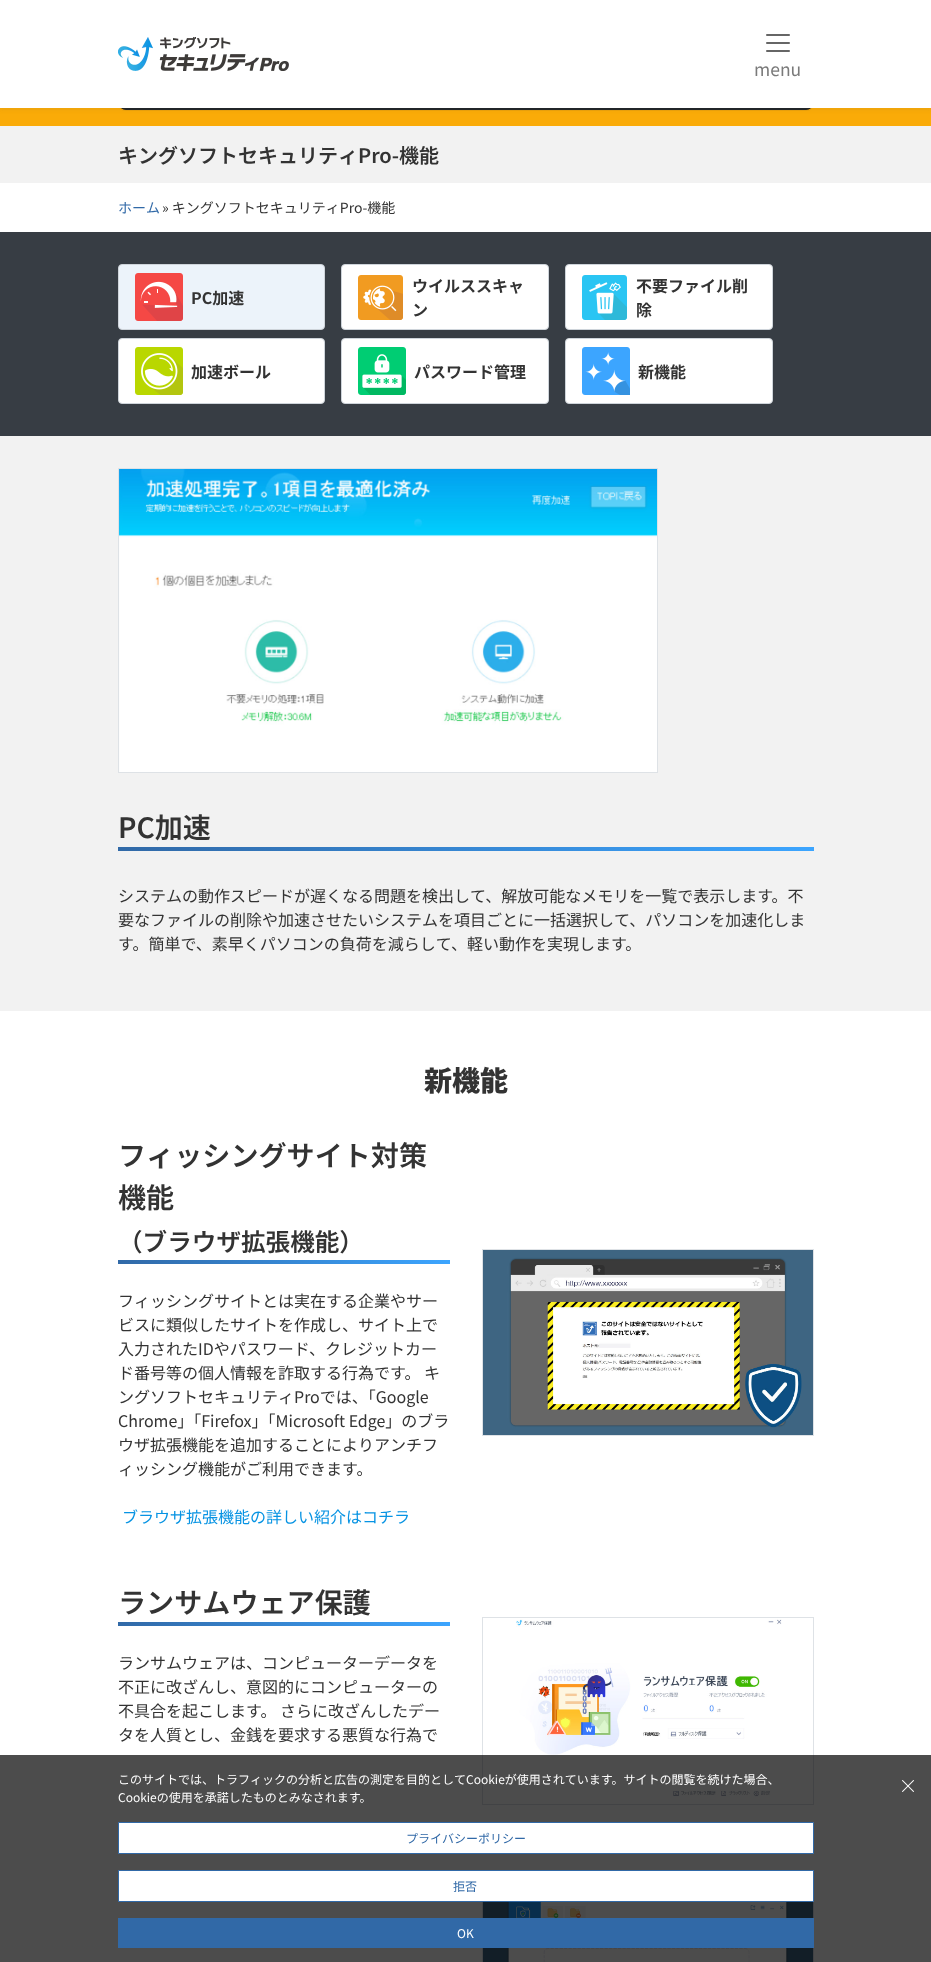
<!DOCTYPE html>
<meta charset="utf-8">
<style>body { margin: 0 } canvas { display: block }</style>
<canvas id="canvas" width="931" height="1962"></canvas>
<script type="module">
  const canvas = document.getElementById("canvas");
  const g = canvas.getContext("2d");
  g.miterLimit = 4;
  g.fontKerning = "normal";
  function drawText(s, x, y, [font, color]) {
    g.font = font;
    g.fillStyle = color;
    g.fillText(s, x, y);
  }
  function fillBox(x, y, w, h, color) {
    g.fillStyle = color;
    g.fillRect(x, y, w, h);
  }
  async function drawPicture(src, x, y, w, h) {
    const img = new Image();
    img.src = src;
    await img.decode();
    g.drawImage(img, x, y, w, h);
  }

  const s1 = ["17.5px Noto Sans JP", "#7A7A7A"];
  const s2 = ["600 20px Noto Sans JP", "#333333"];
  const s3 = ["14px Noto Sans JP", "#3169A7"];
  const s4 = ["14px Noto Sans JP", "#333333"];
  const s5 = ["bold 16px Noto Sans JP", "#333333"];
  const s6 = ["600 28.1px Noto Sans JP", "#333333"];
  const s7 = ["16px Noto Sans JP", "#333333"];
  const s8 = ["900 28px Noto Sans JP", "#333333"];
  const s9 = ["600 24.6px Noto Sans JP", "#333333"];
  const s10 = ["16px Noto Sans JP", "#0693E3"];
  const s11 = ["12px Noto Sans JP", "#FFFFFF"];
  const s12 = ["12px Noto Sans JP", "#3169A7"];

  fillBox(0, 0, 931, 1962, "#FFFFFF");
  fillBox(0, 108, 931, 18, "#FAAB08");
  g.fillStyle = "rgba(51, 51, 51, 0.07)";
  g.filter = "blur(0.5px)";
  g.beginPath();
  g.roundRect(118, 63, 696, 48, 8);
  g.fill();
  g.filter = "none";
  g.fillStyle = "#212529";
  g.beginPath();
  g.roundRect(118.5, 62.5, 695, 47, 7.5);
  g.fill();
  g.strokeStyle = "#212529";
  g.stroke();
  g.fillStyle = "rgba(51, 51, 51, 0.07)";
  g.filter = "blur(2px)";
  g.beginPath();
  g.rect(0, 2, 931, 108);
  g.fill();
  g.filter = "none";
  fillBox(0, 0, 931, 108, "#FFFFFF");
  await drawPicture("pic1.png", 118, 37, 171, 34);
  await drawPicture("pic2.png", 766, 34, 24, 18);
  drawText("menu", 754, 76, s1);
  fillBox(0, 126, 931, 57, "#F2F2F2");
  drawText("キングソフトセキュリティPro-機能", 118, 163, s2);
  drawText("ホーム", 118, 213, s3);
  drawText("» キングソフトセキュリティPro-機能", 162, 213, s4);
  fillBox(0, 232, 931, 204, "#373D44");
  g.fillStyle = "#ECF3FA";
  g.beginPath();
  g.roundRect(118.5, 264.5, 206, 65, 3.5);
  g.fill();
  g.strokeStyle = "#CED4DA";
  g.stroke();
  await drawPicture("pic3.png", 135, 273, 48, 48);
  drawText("PC加速", 191, 304, s5);
  g.fillStyle = "#FFFFFF";
  g.beginPath();
  g.roundRect(341.5, 264.5, 207, 65, 3.5);
  g.fill();
  g.stroke();
  await drawPicture("pic4.png", 358, 275, 45, 45);
  drawText("ウイルススキャ", 412, 292, s5);
  drawText("ン", 412, 316, s5);
  g.fillStyle = "#FFFFFF";
  g.beginPath();
  g.roundRect(565.5, 264.5, 207, 65, 3.5);
  g.fill();
  g.stroke();
  await drawPicture("pic5.png", 582, 275, 45, 45);
  drawText("不要ファイル削", 636, 292, s5);
  drawText("除", 636, 316, s5);
  g.fillStyle = "#FFFFFF";
  g.beginPath();
  g.roundRect(118.5, 338.5, 206, 65, 3.5);
  g.fill();
  g.stroke();
  await drawPicture("pic6.png", 135, 347, 48, 48);
  drawText("加速ボール", 191, 378, s5);
  g.fillStyle = "#FFFFFF";
  g.beginPath();
  g.roundRect(341.5, 338.5, 207, 65, 3.5);
  g.fill();
  g.stroke();
  await drawPicture("pic7.png", 358, 347, 48, 48);
  drawText("パスワード管理", 414, 378, s5);
  g.fillStyle = "#FFFFFF";
  g.beginPath();
  g.roundRect(565.5, 338.5, 207, 65, 3.5);
  g.fill();
  g.stroke();
  await drawPicture("pic8.png", 582, 347, 48, 48);
  drawText("新機能", 638, 378, s5);
  fillBox(0, 436, 931, 575, "#F2F2F2");
  g.strokeStyle = "#DEE2E6";
  g.strokeRect(118.5, 468.5, 539, 304);
  await drawPicture("pic9.png", 119, 469, 538, 303);
  await drawPicture("pic10.png", 118, 847, 696, 4);
  drawText("PC加速", 118, 838, s6);
  drawText("システムの動作スピードが遅くなる問題を検出して、解放可能なメモリを一覧で表示します。不", 118, 902, s7);
  drawText("要なファイルの削除や加速させたいシステムを項目ごとに一括選択して、パソコンを加速化しま", 118, 926, s7);
  drawText("す。簡単で、素早くパソコンの負荷を減らして、軽い動作を実現します。", 118, 950, s7);
  drawText("新機能", 424, 1091, s8);
  await drawPicture("pic11.png", 118, 1260, 332, 4);
  drawText("フィッシングサイト対策", 118, 1166, s6);
  drawText("機能", 118, 1208, s6);
  drawText("（ブラウザ拡張機能）", 118, 1251, s9);
  drawText("フィッシングサイトとは実在する企業やサー", 118, 1307, s7);
  drawText("ビスに類似したサイトを作成し、サイト上で", 118, 1331, s7);
  drawText("入力されたIDやパスワード、クレジットカー", 118, 1355, s7);
  drawText("ド番号等の個人情報を詐取する行為です。 キ", 118, 1379, s7);
  drawText("ングソフトセキュリティProでは、「Google", 118, 1403, s7);
  drawText("Chrome」「Firefox」「Microsoft Edge」のブラ", 118, 1427, s7);
  drawText("ウザ拡張機能を追加することによりアンチフ", 118, 1451, s7);
  drawText("ィッシング機能がご利用できます。", 118, 1475, s7);
  drawText("ブラウザ拡張機能の詳しい紹介はコチラ", 122, 1523, s10);
  g.strokeRect(482.5, 1249.5, 331, 186);
  await drawPicture("pic12.png", 483, 1250, 330, 185);
  await drawPicture("pic13.png", 118, 1622, 332, 4);
  drawText("ランサムウェア保護", 118, 1613, s6);
  drawText("ランサムウェアは、コンピューターデータを", 118, 1669, s7);
  drawText("不正に改ざんし、意図的にコンピューターの", 118, 1693, s7);
  drawText("不具合を起こします。 さらに改ざんしたデー", 118, 1717, s7);
  drawText("タを人質とし、金銭を要求する悪質な行為で", 118, 1741, s7);
  g.strokeRect(482.5, 1617.5, 331, 187);
  await drawPicture("pic14.png", 516, 1619, 266, 178);
  g.strokeRect(482.5, 1894.5, 331, 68);
  await drawPicture("pic15.png", 483, 1902, 330, 60);
  fillBox(0, 1755, 931, 207, "rgba(0, 0, 0, 0.7)");
  drawText("このサイトでは、トラフィックの分析と広告の測定を目的としてCookieが使用されています。サイトの閲覧を続けた場合、", 118, 1784, s11);
  drawText("Cookieの使用を承諾したものとみなされます。", 118, 1802, s11);
  g.beginPath();
  g.rect(118.5, 1822.5, 695, 31);
  g.fill();
  g.strokeStyle = "#3169A7";
  g.stroke();
  drawText("プライバシーポリシー", 406, 1843, s12);
  g.fillStyle = "#FFFFFF";
  g.beginPath();
  g.rect(118.5, 1870.5, 695, 31);
  g.fill();
  g.stroke();
  drawText("拒否", 453, 1891, s12);
  fillBox(118, 1918, 696, 30, "#3169A7");
  drawText("OK", 457, 1938, s11);
  await drawPicture("pic16.png", 902, 1780, 12, 12);
</script>
